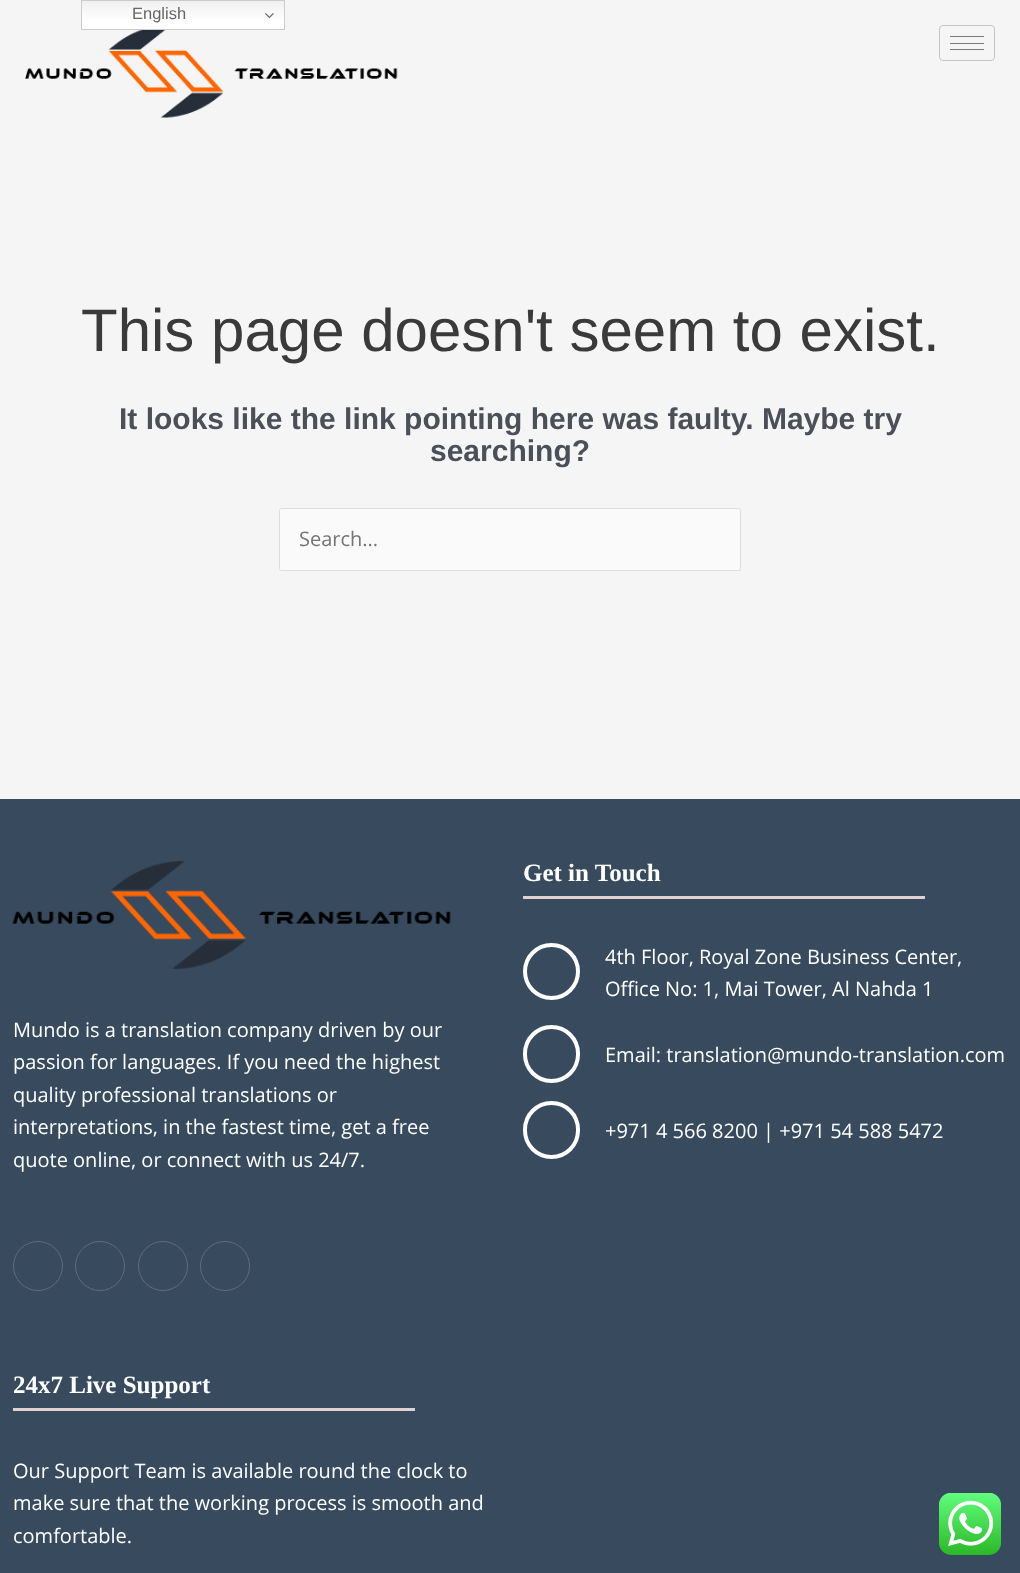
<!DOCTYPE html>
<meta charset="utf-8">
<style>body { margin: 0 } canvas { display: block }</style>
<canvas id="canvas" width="1020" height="1573"></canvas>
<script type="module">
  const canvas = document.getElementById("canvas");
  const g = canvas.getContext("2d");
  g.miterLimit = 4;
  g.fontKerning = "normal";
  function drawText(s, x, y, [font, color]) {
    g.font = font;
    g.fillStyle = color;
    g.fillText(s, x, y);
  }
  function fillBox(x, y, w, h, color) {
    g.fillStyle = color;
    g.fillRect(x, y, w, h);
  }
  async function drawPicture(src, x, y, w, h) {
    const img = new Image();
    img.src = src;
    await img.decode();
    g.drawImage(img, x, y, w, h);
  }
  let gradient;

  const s1 = ["16.5px Liberation Sans", "#666666"];
  const s2 = ["60px Liberation Sans", "#3A3A3A"];
  const s3 = ["bold 30px Liberation Sans", "#4B4F58"];
  const s4 = ["20px Open Sans", "#757575"];
  const s5 = ["20px Open Sans", "#FFFFFF"];
  const s6 = ["bold 25px Liberation Serif", "#FFFFFF"];

  fillBox(0, 0, 1020, 1573, "#F5F5F5");
  gradient = g.createLinearGradient(183, 0, 183, 30);
  gradient.addColorStop(0, "#EFEFEF");
  gradient.addColorStop(0.7, "#FFFFFF");
  g.fillStyle = gradient;
  g.fillRect(82, 1, 202, 28);
  g.strokeStyle = "#CCCCCC";
  g.strokeRect(81.5, 0.5, 203, 29);
  drawText("English", 132, 19, s1);
  await drawPicture("pic1.png", 265, 13, 9, 6);
  await drawPicture("pic2.png", 25, 30, 373, 88);
  g.beginPath();
  g.roundRect(939.5, 25.5, 55, 35, 3.5);
  g.strokeStyle = "#C4C4C4";
  g.stroke();
  fillBox(950, 36, 34, 1, "#7B7B7B");
  fillBox(950, 43, 34, 1, "#7B7B7B");
  fillBox(950, 49, 34, 1, "#7B7B7B");
  drawText("This page doesn't seem to exist.", 81, 351, s2);
  drawText("It looks like the link pointing here was faulty. Maybe try", 119, 429, s3);
  drawText("searching?", 430, 461, s3);
  g.fillStyle = "#FAFAFA";
  g.beginPath();
  g.roundRect(279.5, 508.5, 461, 62, 2);
  g.fill();
  g.strokeStyle = "#DDDDDD";
  g.stroke();
  drawText("Search...", 299, 546, s4);
  fillBox(0, 799, 1020, 774, "#374A5E");
  await drawPicture("pic3.png", 12, 861, 439, 108);
  drawText("Mundo is a translation company driven by our", 13, 1037, s5);
  drawText("passion for languages. If you need the highest", 13, 1069, s5);
  drawText("quality professional translations or", 13, 1102, s5);
  drawText("interpretations, in the fastest time, get a free", 13, 1134, s5);
  drawText("quote online, or connect with us 24/7.", 13, 1167, s5);
  g.beginPath();
  g.arc(38, 1266, 24.5, 0, Math.PI * 2);
  g.strokeStyle = "#5E6D7E";
  g.stroke();
  g.beginPath();
  g.arc(100, 1266, 24.5, 0, Math.PI * 2);
  g.stroke();
  g.beginPath();
  g.arc(163, 1266, 24.5, 0, Math.PI * 2);
  g.stroke();
  g.beginPath();
  g.arc(225, 1266, 24.5, 0, Math.PI * 2);
  g.stroke();
  drawText("Get in Touch", 523, 881, s6);
  fillBox(523, 896, 402, 3, "#E0D2D2");
  g.beginPath();
  g.arc(551.5, 971.5, 26.5, 0, Math.PI * 2);
  g.strokeStyle = "#FFFFFF";
  g.lineWidth = 4;
  g.stroke();
  drawText("4th Floor, Royal Zone Business Center,", 605, 964, s5);
  drawText("Office No: 1, Mai Tower, Al Nahda 1", 605, 996, s5);
  g.beginPath();
  g.roundRect(525, 1027, 53, 54, 26.5);
  g.stroke();
  drawText("Email: translation@mundo-translation.com", 605, 1062, s5);
  g.beginPath();
  g.roundRect(525, 1103, 53, 54, 26.5);
  g.stroke();
  drawText("+971 4 566 8200 | +971 54 588 5472", 605, 1138, s5);
  drawText("24x7 Live Support", 13, 1393, s6);
  fillBox(13, 1408, 402, 3, "#E0D2D2");
  drawText("Our Support Team is available round the clock to", 13, 1478, s5);
  drawText("make sure that the working process is smooth and", 13, 1510, s5);
  drawText("comfortable.", 13, 1543, s5);
  await drawPicture("pic4.png", 939, 1493, 62, 62);
</script>
